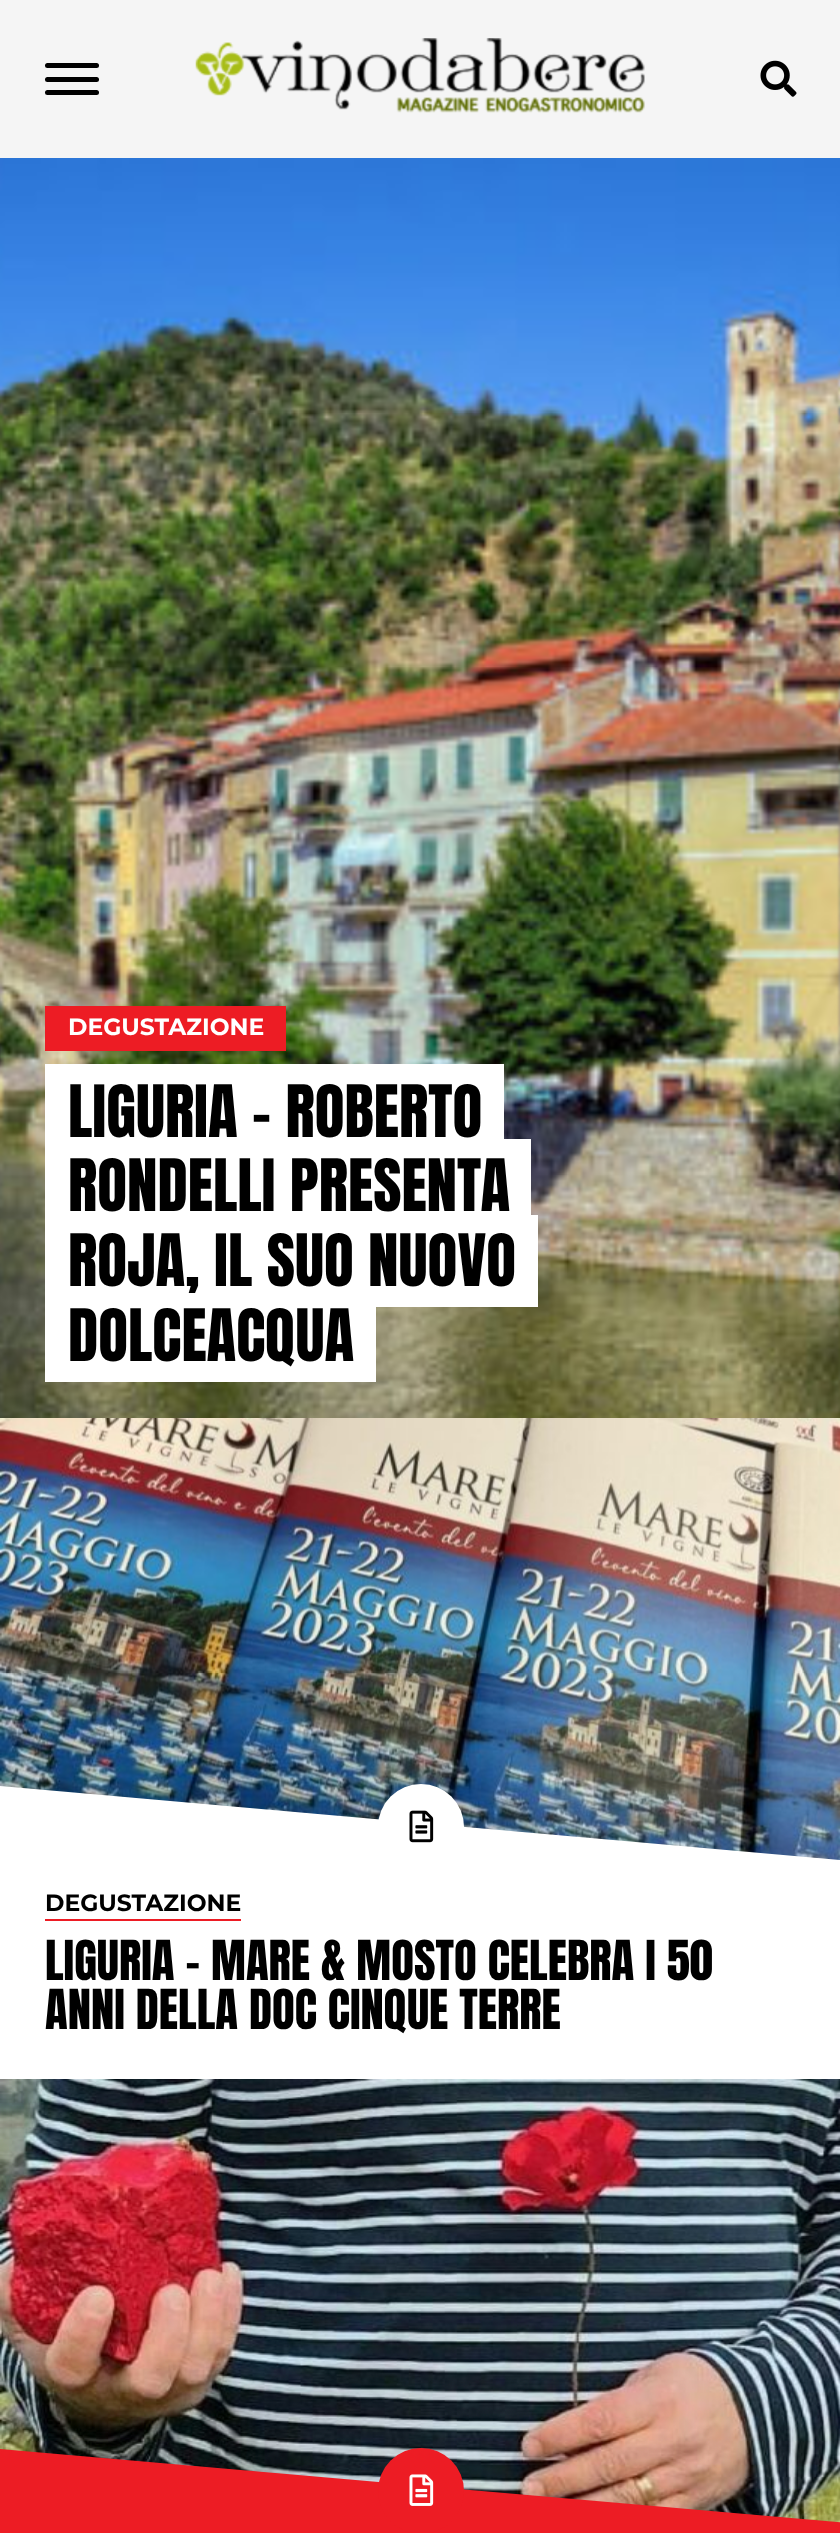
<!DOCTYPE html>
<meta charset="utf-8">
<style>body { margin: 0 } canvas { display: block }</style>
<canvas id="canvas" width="840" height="2533"></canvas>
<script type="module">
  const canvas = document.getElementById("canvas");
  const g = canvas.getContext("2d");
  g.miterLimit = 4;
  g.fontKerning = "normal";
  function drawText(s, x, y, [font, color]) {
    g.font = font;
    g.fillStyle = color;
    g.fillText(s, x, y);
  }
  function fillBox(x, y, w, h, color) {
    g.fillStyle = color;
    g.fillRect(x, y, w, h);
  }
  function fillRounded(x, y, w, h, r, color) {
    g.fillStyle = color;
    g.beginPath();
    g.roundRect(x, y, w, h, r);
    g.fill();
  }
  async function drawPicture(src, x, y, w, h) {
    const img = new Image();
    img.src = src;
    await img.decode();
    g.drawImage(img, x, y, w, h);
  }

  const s1 = ["bold 23.5px Montserrat", "#FFFFFF"];
  const s2 = ["61.25px Anton", "#000000"];
  const s3 = ["bold 23.5px Montserrat", "#000000"];
  const s4 = ["46.75px Anton", "#000000"];

  fillBox(0, 0, 840, 2533, "#FFFFFF");
  fillBox(0, 0, 840, 158, "#F5F5F5");
  fillRounded(45, 63, 54, 5, 2.5, "#000000");
  fillRounded(45, 77, 54, 5, 2.5, "#000000");
  fillRounded(45, 90, 54, 5, 2.5, "#000000");
  await drawPicture("pic1.png", 195, 38, 450, 75);
  await drawPicture("pic2.png", 760, 60, 37, 37);
  await drawPicture("pic3.png", 0, 158, 840, 1260);
  fillBox(45, 1006, 241, 45, "#ED1C24");
  drawText("DEGUSTAZIONE", 68, 1035, s1);
  g.beginPath();
  g.moveTo(45, 1064);
  g.lineTo(45, 1157);
  g.lineTo(459, 1157);
  g.lineTo(459, 1156);
  g.lineTo(68, 1156);
  g.lineTo(68, 1064);
  g.lineTo(459, 1064);
  g.closePath();
  g.fill();
  g.beginPath();
  g.moveTo(90, 1064);
  g.lineTo(482, 1064);
  g.lineTo(482, 1156);
  g.lineTo(90, 1156);
  g.lineTo(90, 1157);
  g.lineTo(504, 1157);
  g.lineTo(504, 1064);
  g.closePath();
  g.fill();
  fillBox(68, 1064, 414, 75, "#FFFFFF");
  drawText("LIGURIA – ROBERTO", 68, 1137, s2);
  g.fillStyle = "#FFFFFF";
  g.beginPath();
  g.moveTo(90, 1231);
  g.lineTo(531, 1231);
  g.lineTo(531, 1139);
  g.lineTo(508, 1139);
  g.lineTo(508, 1231);
  g.closePath();
  g.fill();
  fillBox(68, 1139, 440, 76, "#FFFFFF");
  drawText("RONDELLI PRESENTA", 68, 1211, s2);
  g.fillStyle = "#FFFFFF";
  g.beginPath();
  g.moveTo(45, 1139);
  g.lineTo(45, 1231);
  g.lineTo(486, 1231);
  g.lineTo(68, 1231);
  g.lineTo(68, 1139);
  g.closePath();
  g.fill();
  fillBox(68, 1215, 470, 92, "#FFFFFF");
  g.beginPath();
  g.moveTo(90, 1289);
  g.lineTo(353, 1289);
  g.lineTo(353, 1382);
  g.lineTo(90, 1382);
  g.lineTo(376, 1382);
  g.lineTo(376, 1289);
  g.closePath();
  g.fill();
  drawText("ROJA, IL SUO NUOVO", 68, 1286, s2);
  fillBox(45, 1231, 23, 58, "#FFFFFF");
  fillBox(68, 1307, 285, 75, "#FFFFFF");
  drawText("DOLCEACQUA", 68, 1361, s2);
  g.fillStyle = "#FFFFFF";
  g.beginPath();
  g.moveTo(45, 1289);
  g.lineTo(45, 1382);
  g.lineTo(331, 1382);
  g.lineTo(68, 1382);
  g.lineTo(68, 1289);
  g.lineTo(331, 1289);
  g.closePath();
  g.fill();
  await drawPicture("pic4.png", 0, 1418, 840, 443);
  g.save();
  g.beginPath();
  g.rect(0, 1418, 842, 472);
  g.clip();
  g.beginPath();
  g.moveTo(0, 1786);
  g.lineTo(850, 1861);
  g.lineTo(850, 2198);
  g.lineTo(0, 2124);
  g.closePath();
  g.fill();
  g.restore();
  g.beginPath();
  g.arc(421, 1827, 43, 0, Math.PI * 2);
  g.fill();
  await drawPicture("pic5.png", 409, 1810, 25, 33);
  fillBox(45, 1919, 196, 2, "#ED1C24");
  drawText("DEGUSTAZIONE", 45, 1911, s3);
  drawText("LIGURIA – MARE & MOSTO CELEBRA I 50", 45, 1980, s4);
  drawText("ANNI DELLA DOC CINQUE TERRE", 45, 2029, s4);
  await drawPicture("pic6.png", 0, 2079, 840, 444);
  g.fillStyle = "#ED1C24";
  g.beginPath();
  g.moveTo(0, 2449);
  g.lineTo(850, 2523);
  g.lineTo(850, 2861);
  g.lineTo(0, 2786);
  g.closePath();
  g.fill();
  g.beginPath();
  g.arc(421, 2491, 43, 0, Math.PI * 2);
  g.fill();
  await drawPicture("pic7.png", 409, 2474, 25, 32);
</script>
